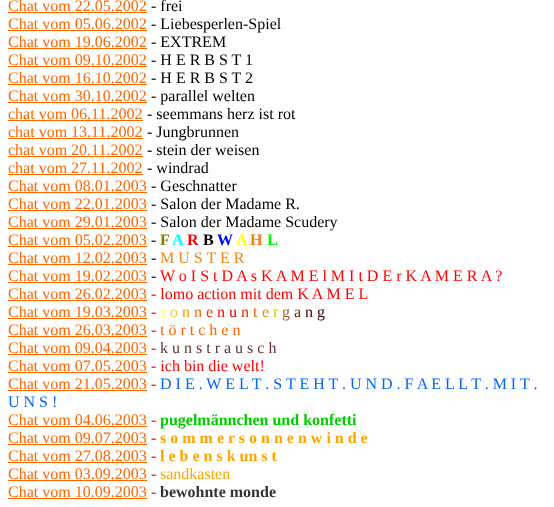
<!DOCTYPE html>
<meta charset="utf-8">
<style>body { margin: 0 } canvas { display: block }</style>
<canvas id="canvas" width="554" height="507"></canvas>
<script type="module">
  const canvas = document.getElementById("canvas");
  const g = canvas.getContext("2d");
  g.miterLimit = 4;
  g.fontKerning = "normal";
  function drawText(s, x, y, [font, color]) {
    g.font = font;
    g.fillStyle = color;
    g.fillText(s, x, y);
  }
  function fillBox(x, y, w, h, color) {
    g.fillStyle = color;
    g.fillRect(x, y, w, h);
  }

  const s1 = ["16px Liberation Serif", "#FF6600"];
  const s2 = ["16px Liberation Serif", "#000000"];
  const s3 = ["bold 16px Liberation Serif", "#808000"];
  const s4 = ["bold 16px Liberation Serif", "#00FFFF"];
  const s5 = ["bold 16px Liberation Serif", "#FF0000"];
  const s6 = ["bold 16px Liberation Serif", "#000000"];
  const s7 = ["bold 16px Liberation Serif", "#0000FF"];
  const s8 = ["bold 16px Liberation Serif", "#FFFF00"];
  const s9 = ["bold 16px Liberation Serif", "#FF7A05"];
  const s10 = ["bold 16px Liberation Serif", "#00FF00"];
  const s11 = ["16px Liberation Serif", "#F08711"];
  const s12 = ["16px Liberation Serif", "#FF0000"];
  const s13 = ["16px Liberation Serif", "#FFFF66"];
  const s14 = ["16px Liberation Serif", "#FFCC33"];
  const s15 = ["16px Liberation Serif", "#FF9900"];
  const s16 = ["16px Liberation Serif", "#FF3300"];
  const s17 = ["16px Liberation Serif", "#C00000"];
  const s18 = ["16px Liberation Serif", "#CC3300"];
  const s19 = ["16px Liberation Serif", "#CC6600"];
  const s20 = ["16px Liberation Serif", "#CC9900"];
  const s21 = ["16px Liberation Serif", "#CCCC00"];
  const s22 = ["16px Liberation Serif", "#996633"];
  const s23 = ["16px Liberation Serif", "#663300"];
  const s24 = ["16px Liberation Serif", "#330000"];
  const s25 = ["16px Liberation Serif", "#663333"];
  const s26 = ["16px Liberation Serif", "#0066FF"];
  const s27 = ["bold 16px Liberation Serif", "#00CC00"];
  const s28 = ["bold 16px Liberation Serif", "#FFA500"];
  const s29 = ["16px Liberation Serif", "#FFA500"];
  const s30 = ["bold 16px Liberation Serif", "#333333"];

  fillBox(0, 0, 554, 507, "#FFFFFF");
  drawText("Chat vom 22.05.2002", 8, 11, s1);
  fillBox(8, 12, 139, 1, "#FF6600");
  drawText("- frei", 151, 11, s2);
  drawText("Chat vom 05.06.2002", 8, 29, s1);
  fillBox(8, 30, 139, 1, "#FF6600");
  drawText("- Liebesperlen-Spiel", 151, 29, s2);
  drawText("Chat vom 19.06.2002", 8, 47, s1);
  fillBox(8, 48, 139, 1, "#FF6600");
  drawText("- EXTREM", 151, 47, s2);
  drawText("Chat vom 09.10.2002", 8, 65, s1);
  fillBox(8, 66, 139, 1, "#FF6600");
  drawText("- H E R B S T 1", 151, 65, s2);
  drawText("Chat vom 16.10.2002", 8, 83, s1);
  fillBox(8, 84, 139, 1, "#FF6600");
  drawText("- H E R B S T 2", 151, 83, s2);
  drawText("Chat vom 30.10.2002", 8, 101, s1);
  fillBox(8, 102, 139, 1, "#FF6600");
  drawText("- parallel welten", 151, 101, s2);
  drawText("chat vom 06.11.2002", 8, 119, s1);
  fillBox(8, 120, 135, 1, "#FF6600");
  drawText("- seemmans herz ist rot", 147, 119, s2);
  drawText("chat vom 13.11.2002", 8, 137, s1);
  fillBox(8, 138, 135, 1, "#FF6600");
  drawText("- Jungbrunnen", 147, 137, s2);
  drawText("chat vom 20.11.2002", 8, 155, s1);
  fillBox(8, 156, 135, 1, "#FF6600");
  drawText("- stein der weisen", 147, 155, s2);
  drawText("chat vom 27.11.2002", 8, 173, s1);
  fillBox(8, 174, 135, 1, "#FF6600");
  drawText("- windrad", 147, 173, s2);
  drawText("Chat vom 08.01.2003", 8, 191, s1);
  fillBox(8, 192, 139, 1, "#FF6600");
  drawText("- Geschnatter", 151, 191, s2);
  drawText("Chat vom 22.01.2003", 8, 209, s1);
  fillBox(8, 210, 139, 1, "#FF6600");
  drawText("- Salon der Madame R.", 151, 209, s2);
  drawText("Chat vom 29.01.2003", 8, 227, s1);
  fillBox(8, 228, 139, 1, "#FF6600");
  drawText("- Salon der Madame Scudery", 151, 227, s2);
  drawText("Chat vom 05.02.2003", 8, 245, s1);
  fillBox(8, 246, 139, 1, "#FF6600");
  drawText("-", 151, 245, s2);
  drawText("F", 160, 245, s3);
  drawText("A", 172, 245, s4);
  drawText("R", 187, 245, s5);
  drawText("B", 203, 245, s6);
  drawText("W", 217, 245, s7);
  drawText("A", 236, 245, s8);
  drawText("H", 250, 245, s9);
  drawText("L", 267, 245, s10);
  drawText("Chat vom 12.02.2003", 8, 263, s1);
  fillBox(8, 264, 139, 1, "#FF6600");
  drawText("-", 151, 263, s2);
  drawText("M U S T E R", 160, 263, s11);
  drawText("Chat vom 19.02.2003", 8, 281, s1);
  fillBox(8, 282, 139, 1, "#FF6600");
  drawText("-", 151, 281, s2);
  drawText("W o I S t D A s K A M E l M I t D E r K A M E R A ?", 160, 281, s12);
  drawText("Chat vom 26.02.2003", 8, 299, s1);
  fillBox(8, 300, 139, 1, "#FF6600");
  drawText("- lomo action mit dem K A M E L", 151, 299, s12);
  drawText("Chat vom 19.03.2003", 8, 317, s1);
  fillBox(8, 318, 139, 1, "#FF6600");
  drawText("-", 151, 317, s12);
  drawText("s", 160, 317, s13);
  drawText("o", 170, 317, s14);
  drawText("n", 182, 317, s15);
  drawText("n", 194, 317, s1);
  drawText("e", 206, 317, s16);
  drawText("n", 217, 317, s12);
  drawText("u", 229, 317, s17);
  drawText("n", 241, 317, s18);
  drawText("t", 253, 317, s19);
  drawText("e", 262, 317, s20);
  drawText("r", 273, 317, s21);
  drawText("g", 282, 317, s22);
  drawText("a", 294, 317, s23);
  drawText("n g", 305, 317, s24);
  drawText("Chat vom 26.03.2003", 8, 335, s1);
  fillBox(8, 336, 139, 1, "#FF6600");
  drawText("-", 151, 335, s12);
  drawText("t ö r t c h e n", 160, 335, s1);
  drawText("Chat vom 09.04.2003", 8, 353, s1);
  fillBox(8, 354, 139, 1, "#FF6600");
  drawText("-", 151, 353, s12);
  drawText("k u n s t r a u s c h", 160, 353, s25);
  drawText("Chat vom 07.05.2003", 8, 371, s1);
  fillBox(8, 372, 139, 1, "#FF6600");
  drawText("- ich bin die welt!", 151, 371, s12);
  drawText("Chat vom 21.05.2003", 8, 389, s1);
  fillBox(8, 390, 139, 1, "#FF6600");
  drawText("-", 151, 389, s12);
  drawText("D I E . W E L T . S T E H T . U N D . F A E L L T . M I T .", 160, 389, s26);
  drawText("U N S !", 8, 407, s26);
  drawText("Chat vom 04.06.2003", 8, 425, s1);
  fillBox(8, 426, 139, 1, "#FF6600");
  drawText("-", 151, 425, s12);
  drawText("pugelmännchen und konfetti", 160, 425, s27);
  drawText("Chat vom 09.07.2003", 8, 443, s1);
  fillBox(8, 444, 139, 1, "#FF6600");
  drawText("-", 151, 443, s12);
  drawText("s o m m e r s o n n e n w i n d e", 160, 443, s28);
  drawText("Chat vom 27.08.2003", 8, 461, s1);
  fillBox(8, 462, 139, 1, "#FF6600");
  drawText("-", 151, 461, s12);
  drawText("l e b e n s k un s t", 160, 461, s28);
  drawText("Chat vom 03.09.2003", 8, 479, s1);
  fillBox(8, 480, 139, 1, "#FF6600");
  drawText("-", 151, 479, s12);
  drawText("sandkasten", 160, 479, s29);
  drawText("Chat vom 10.09.2003", 8, 497, s1);
  fillBox(8, 498, 139, 1, "#FF6600");
  drawText("-", 151, 497, s12);
  drawText("bewohnte monde", 160, 497, s30);
</script>
